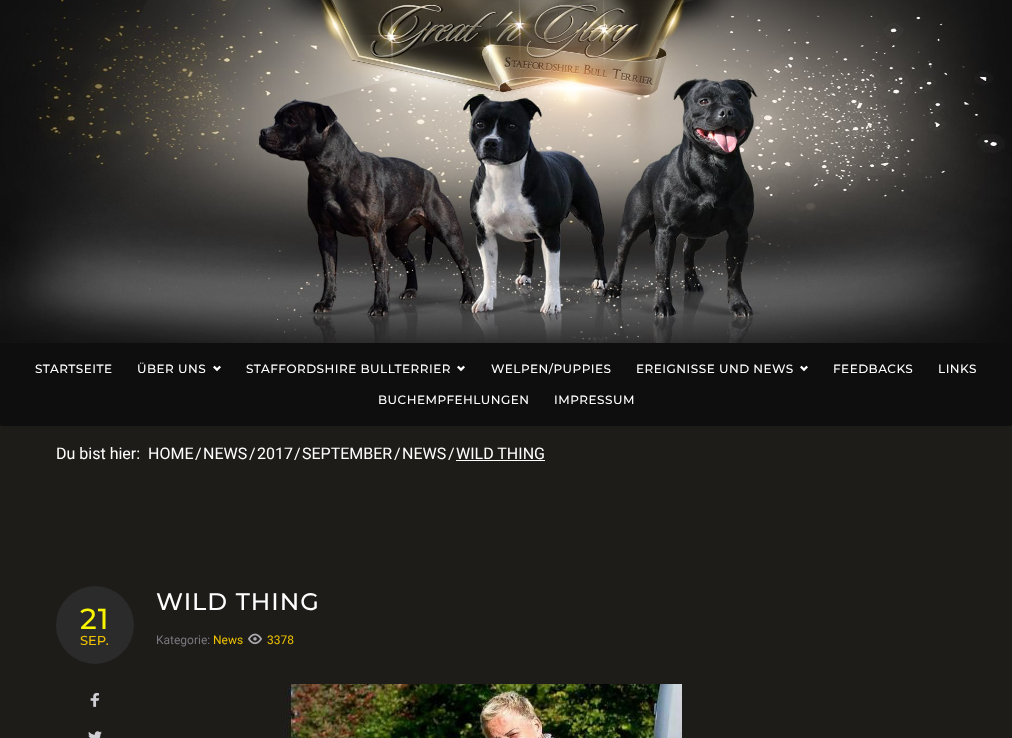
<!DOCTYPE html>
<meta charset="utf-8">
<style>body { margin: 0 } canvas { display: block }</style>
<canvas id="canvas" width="1012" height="738"></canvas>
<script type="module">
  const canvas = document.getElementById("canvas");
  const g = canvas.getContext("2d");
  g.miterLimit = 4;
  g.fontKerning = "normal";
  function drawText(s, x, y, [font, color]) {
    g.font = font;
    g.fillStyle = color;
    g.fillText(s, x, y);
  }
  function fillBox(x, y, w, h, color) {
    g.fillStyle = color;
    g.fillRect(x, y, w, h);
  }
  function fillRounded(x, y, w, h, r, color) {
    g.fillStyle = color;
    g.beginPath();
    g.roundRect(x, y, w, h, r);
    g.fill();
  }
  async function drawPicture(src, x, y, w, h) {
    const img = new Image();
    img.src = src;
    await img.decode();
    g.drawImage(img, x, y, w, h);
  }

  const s1 = ["100 12px Montserrat", "#FFFFFF"];
  const s2 = ["16px Roboto", "#FFFFFF"];
  const s3 = ["100 29px Montserrat", "#F9F500"];
  const s4 = ["100 13px Montserrat", "#EDC100"];
  const s5 = ["100 24px Montserrat", "#FFFFFF"];
  const s6 = ["12px Roboto", "#79787F"];
  const s7 = ["12px Roboto", "#EDC100"];

  fillBox(0, 0, 1012, 738, "#1D1C18");
  fillBox(0, 343, 1012, 2, "#0E0E0E");
  await drawPicture("pic1.png", 0, 0, 1012, 343);
  fillRounded(0, 343, 1012, 83, 2, "#0E0E0E");
  g.letterSpacing = "0.5px";
  drawText("STARTSEITE", 35, 373, s1);
  drawText("ÜBER UNS", 137, 373, s1);
  await drawPicture("pic2.png", 213, 365, 8, 7);
  drawText("STAFFORDSHIRE BULLTERRIER", 246, 373, s1);
  await drawPicture("pic2.png", 457, 365, 8, 7);
  drawText("WELPEN/PUPPIES", 491, 373, s1);
  drawText("EREIGNISSE UND NEWS", 636, 373, s1);
  await drawPicture("pic2.png", 800, 365, 8, 7);
  drawText("FEEDBACKS", 833, 373, s1);
  drawText("LINKS", 938, 373, s1);
  drawText("BUCHEMPFEHLUNGEN", 378, 404, s1);
  drawText("IMPRESSUM", 554, 404, s1);
  g.letterSpacing = "0px";
  drawText("Du bist hier:", 56, 459, s2);
  drawText("HOME", 148, 459, s2);
  drawText("/", 195, 459, s2);
  drawText("NEWS", 203, 459, s2);
  drawText("/", 249, 459, s2);
  drawText("2017", 257, 459, s2);
  drawText("/", 294, 459, s2);
  drawText("SEPTEMBER", 302, 459, s2);
  drawText("/", 394, 459, s2);
  drawText("NEWS", 402, 459, s2);
  drawText("/", 448, 459, s2);
  drawText("WILD THING", 456, 459, s2);
  fillBox(456, 460, 89, 1, "#FFFFFF");
  g.fillStyle = "#2B2B2B";
  g.beginPath();
  g.arc(95, 625, 39, 0, Math.PI * 2);
  g.fill();
  g.letterSpacing = "1px";
  drawText("21", 80, 629, s3);
  g.letterSpacing = "0px";
  drawText("SEP.", 80, 645, s4);
  await drawPicture("pic3.png", 90, 692, 10, 15);
  await drawPicture("pic4.png", 88, 731, 14, 7);
  g.letterSpacing = "1px";
  drawText("WILD THING", 156, 610, s5);
  g.letterSpacing = "0px";
  drawText("Kategorie:", 156, 644, s6);
  drawText("News", 213, 644, s7);
  await drawPicture("pic5.png", 248, 633, 14, 12);
  drawText("3378", 267, 644, s7);
  await drawPicture("pic6.png", 284, 684, 399, 54);
</script>
